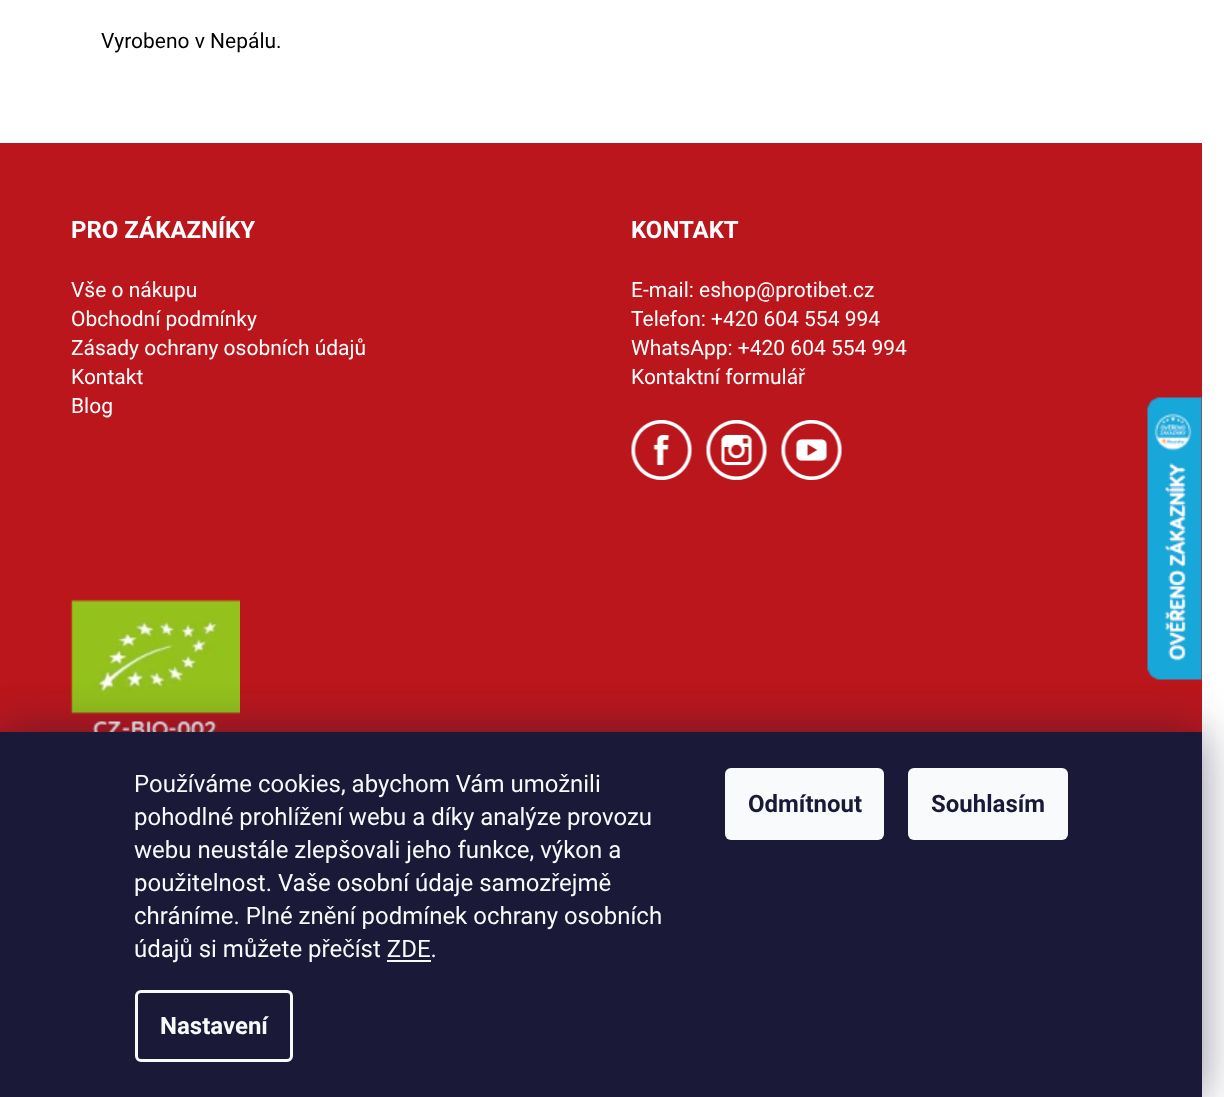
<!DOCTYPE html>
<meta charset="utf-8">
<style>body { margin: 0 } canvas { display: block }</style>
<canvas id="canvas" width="1224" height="1097"></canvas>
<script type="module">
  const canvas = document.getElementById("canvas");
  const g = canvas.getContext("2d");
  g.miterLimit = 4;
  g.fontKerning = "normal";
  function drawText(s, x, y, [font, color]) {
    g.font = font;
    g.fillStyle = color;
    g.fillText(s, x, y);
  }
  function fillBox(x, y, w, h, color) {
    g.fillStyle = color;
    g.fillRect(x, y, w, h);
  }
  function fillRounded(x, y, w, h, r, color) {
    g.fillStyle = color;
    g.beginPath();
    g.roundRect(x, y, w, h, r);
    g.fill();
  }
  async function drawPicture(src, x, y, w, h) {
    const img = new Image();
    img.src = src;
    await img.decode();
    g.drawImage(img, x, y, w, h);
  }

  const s1 = ["21px Roboto", "#000000"];
  const s2 = ["bold 24px Roboto", "#FFFFFF"];
  const s3 = ["21px Roboto", "#FFFFFF"];
  const s4 = ["24px Roboto", "#F8FAFB"];
  const s5 = ["bold 24px Roboto", "#F8FAFB"];
  const s6 = ["bold 24px Roboto", "#1A1937"];

  fillBox(0, 0, 1224, 1097, "#FFFFFF");
  drawText("Vyrobeno v Nepálu.", 101, 48, s1);
  fillBox(0, 143, 1202, 589, "#BA161C");
  drawText("PRO ZÁKAZNÍKY", 71, 238, s2);
  drawText("Vše o nákupu", 71, 297, s3);
  drawText("Obchodní podmínky", 71, 326, s3);
  drawText("Zásady ochrany osobních údajů", 71, 355, s3);
  drawText("Kontakt", 71, 384, s3);
  drawText("Blog", 71, 413, s3);
  drawText("KONTAKT", 631, 238, s2);
  drawText("E-mail: eshop@protibet.cz", 631, 297, s3);
  drawText("Telefon: +420 604 554 994", 631, 326, s3);
  drawText("WhatsApp: +420 604 554 994", 631, 355, s3);
  drawText("Kontaktní formulář", 631, 384, s3);
  await drawPicture("pic1.png", 631, 420, 61, 60);
  await drawPicture("pic2.png", 706, 420, 61, 60);
  await drawPicture("pic3.png", 781, 420, 61, 60);
  await drawPicture("pic4.png", 70, 599, 170, 133);
  g.fillStyle = "rgba(27, 25, 57, 0.5)";
  g.filter = "blur(22.5px)";
  g.beginPath();
  g.rect(0, 732, 1202, 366);
  g.fill();
  g.filter = "none";
  await drawPicture("pic5.png", 1147, 397, 55, 283);
  fillBox(0, 732, 1202, 365, "#1A1937");
  drawText("Používáme cookies, abychom Vám umožnili", 134, 792, s4);
  drawText("pohodlné prohlížení webu a díky analýze provozu", 134, 825, s4);
  drawText("webu neustále zlepšovali jeho funkce, výkon a", 134, 858, s4);
  drawText("použitelnost. Vaše osobní údaje samozřejmě", 134, 891, s4);
  drawText("chráníme. Plné znění podmínek ochrany osobních", 134, 924, s4);
  drawText("údajů si můžete přečíst ZDE.", 134, 957, s4);
  fillBox(387, 960, 44, 2, "#F8FAFB");
  g.beginPath();
  g.roundRect(136.5, 991.5, 155, 69, 4.5);
  g.strokeStyle = "#F8FAFB";
  g.lineWidth = 3;
  g.stroke();
  drawText("Nastavení", 160, 1034, s5);
  fillRounded(725, 768, 159, 72, 6, "#F8FAFB");
  drawText("Odmítnout", 748, 812, s6);
  fillRounded(908, 768, 160, 72, 6, "#F8FAFB");
  drawText("Souhlasím", 931, 812, s6);
</script>
